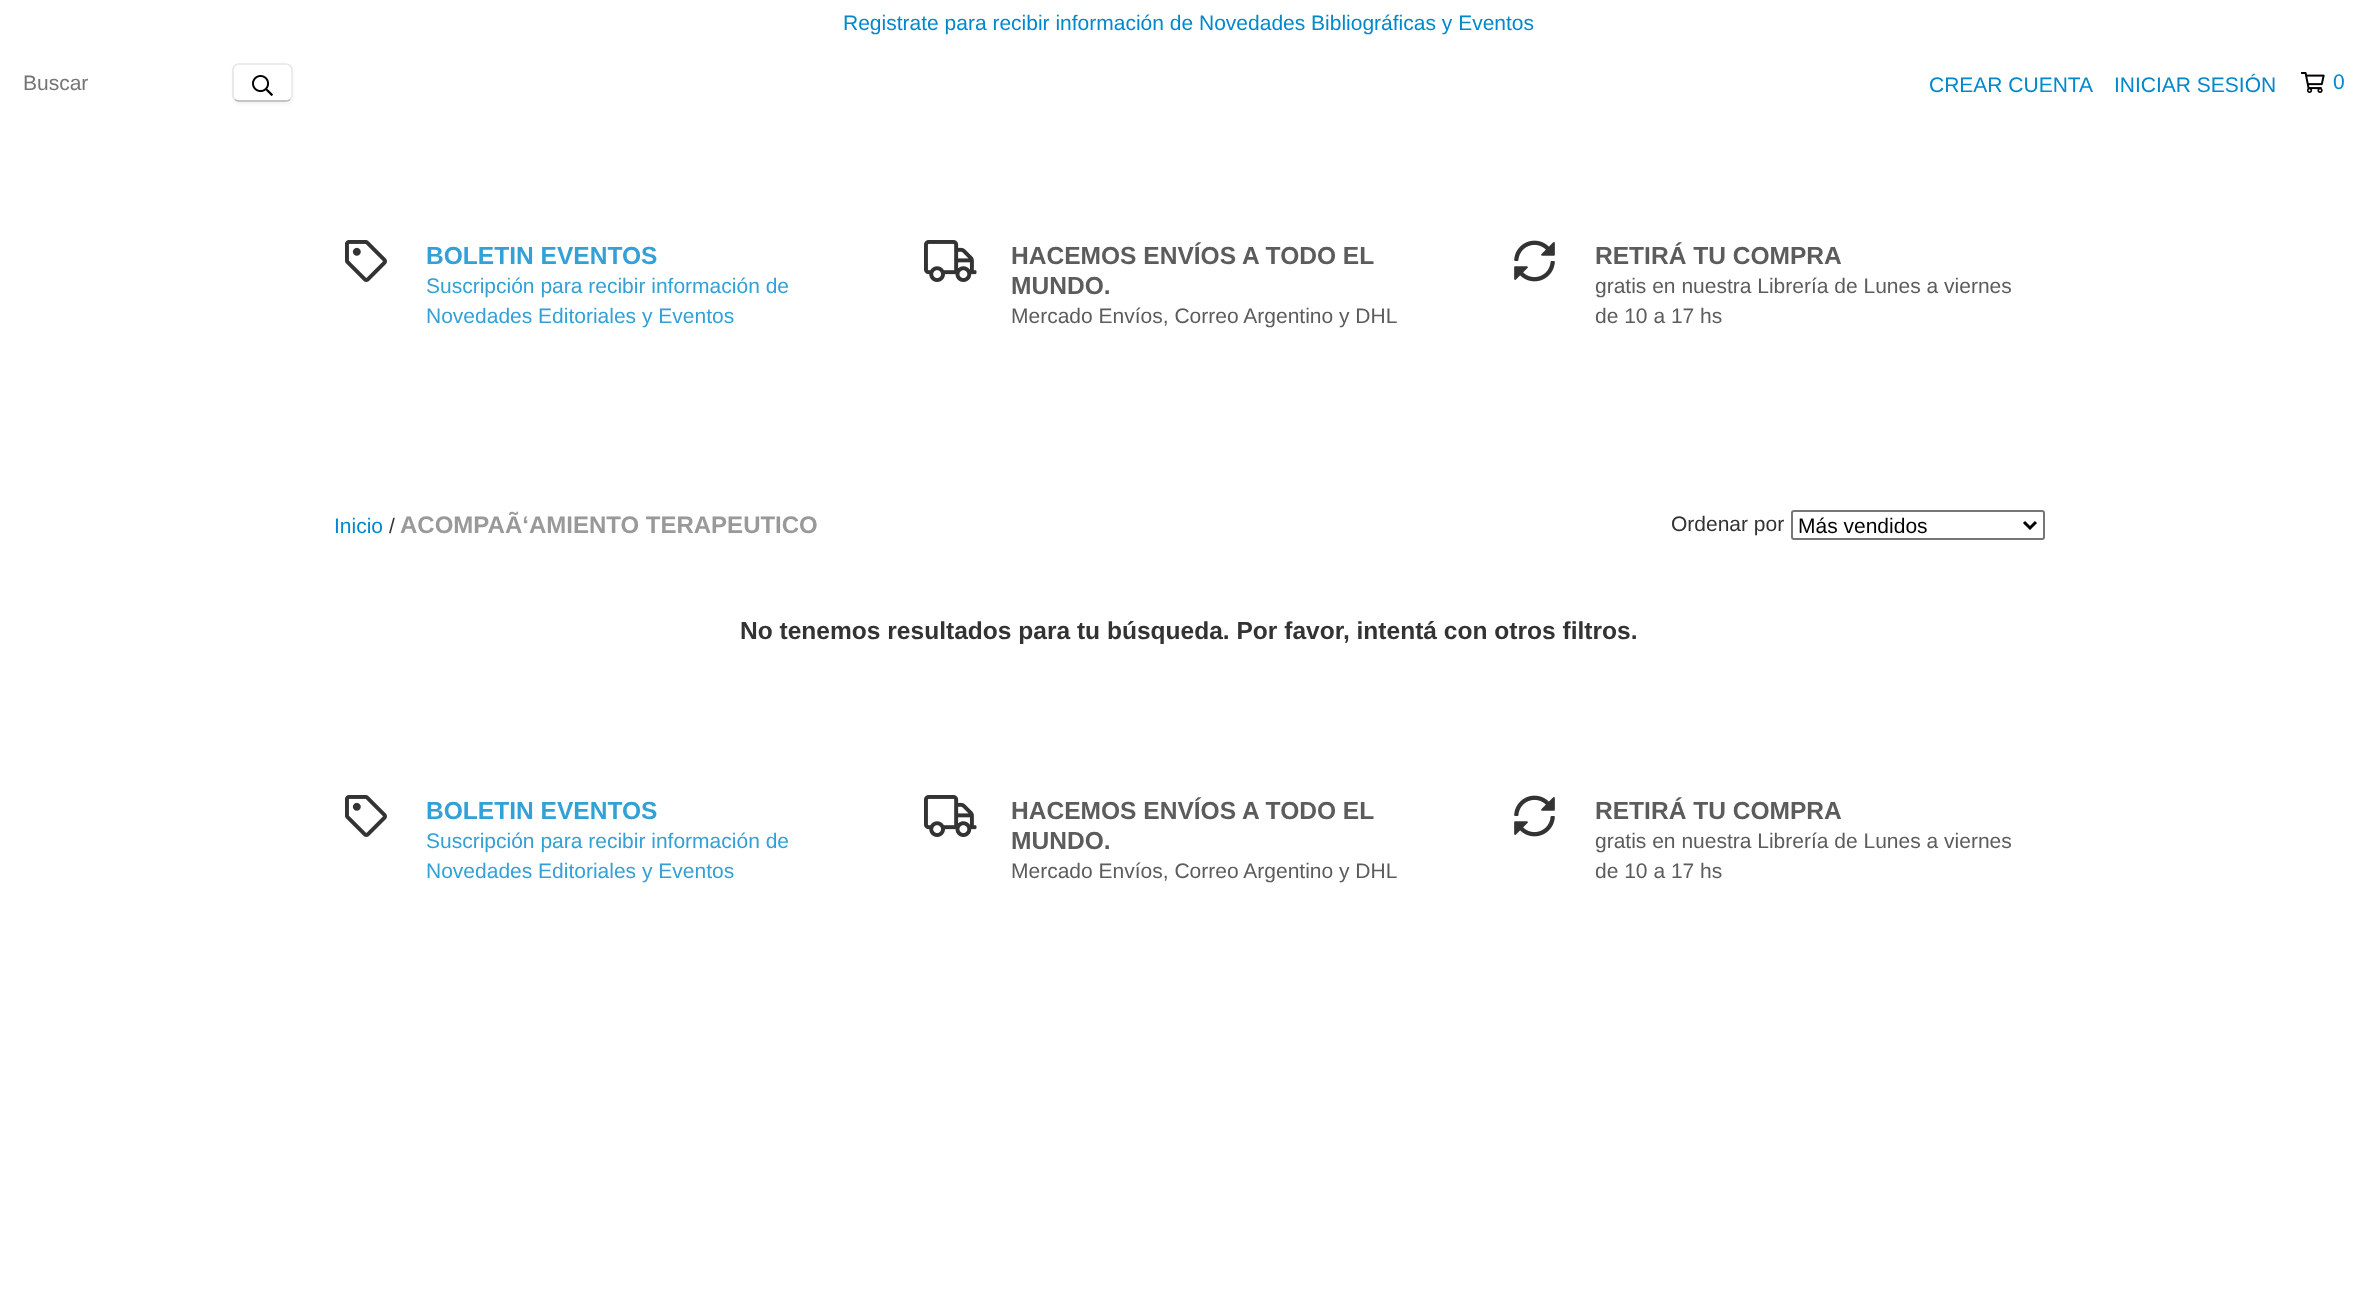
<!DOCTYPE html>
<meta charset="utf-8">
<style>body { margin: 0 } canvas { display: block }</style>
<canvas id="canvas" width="2377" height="1304"></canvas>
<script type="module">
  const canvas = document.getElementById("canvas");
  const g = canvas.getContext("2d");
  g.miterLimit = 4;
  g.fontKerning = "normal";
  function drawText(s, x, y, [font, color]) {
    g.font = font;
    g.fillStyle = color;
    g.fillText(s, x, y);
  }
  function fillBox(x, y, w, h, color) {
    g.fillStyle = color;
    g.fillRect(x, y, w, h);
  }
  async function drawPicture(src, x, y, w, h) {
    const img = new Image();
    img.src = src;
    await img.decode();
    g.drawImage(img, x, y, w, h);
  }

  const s1 = ["21px Liberation Sans", "#0088CC"];
  const s2 = ["21px Liberation Sans", "#757575"];
  const s3 = ["bold 24.55px Liberation Sans", "#33A0D6"];
  const s4 = ["21px Liberation Sans", "#33A0D6"];
  const s5 = ["bold 24.55px Liberation Sans", "#5C5C5C"];
  const s6 = ["21px Liberation Sans", "#5C5C5C"];
  const s7 = ["21px Liberation Sans", "#333333"];
  const s8 = ["bold 24px Liberation Sans", "#999999"];
  const s9 = ["21px Liberation Sans", "#000000"];
  const s10 = ["bold 24.55px Liberation Sans", "#333333"];

  fillBox(0, 0, 2377, 1304, "#FFFFFF");
  drawText("Registrate para recibir información de Novedades Bibliográficas y Eventos", 843, 30, s1);
  drawText("Buscar", 23, 90, s2);
  g.save();
  g.beginPath();
  g.moveTo(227, 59);
  g.lineTo(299, 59);
  g.lineTo(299, 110);
  g.lineTo(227, 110);
  g.closePath();
  g.moveTo(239, 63);
  g.lineTo(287, 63);
  g.bezierCurveTo(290.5, 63, 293, 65.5, 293, 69);
  g.lineTo(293, 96);
  g.bezierCurveTo(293, 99.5, 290.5, 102, 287, 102);
  g.lineTo(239, 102);
  g.bezierCurveTo(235.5, 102, 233, 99.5, 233, 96);
  g.lineTo(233, 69);
  g.bezierCurveTo(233, 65.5, 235.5, 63, 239, 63);
  g.closePath();
  g.clip("evenodd");
  g.fillStyle = "rgba(0, 0, 0, 0.05)";
  g.filter = "blur(1.5px)";
  g.beginPath();
  g.roundRect(233, 65, 60, 39, 6);
  g.fill();
  g.filter = "none";
  g.restore();
  g.beginPath();
  g.moveTo(290, 99.5);
  g.bezierCurveTo(289, 100.5, 288, 101, 286.5, 101);
  g.lineTo(238.5, 101);
  g.bezierCurveTo(237, 101, 236, 100.5, 235, 99.5);
  g.strokeStyle = "#B3B3B3";
  g.lineWidth = 1.5;
  g.stroke();
  g.beginPath();
  g.moveTo(235, 99.5);
  g.bezierCurveTo(234, 98.5, 233, 97.5, 233, 96);
  g.lineTo(233, 69);
  g.bezierCurveTo(233, 67.5, 234, 66.5, 235, 65.5);
  g.bezierCurveTo(236, 64.5, 237, 64, 238.5, 64);
  g.lineTo(286.5, 64);
  g.bezierCurveTo(288, 64, 289, 64.5, 290, 65.5);
  g.bezierCurveTo(291, 66.5, 292, 67.5, 292, 69);
  g.lineTo(292, 96);
  g.bezierCurveTo(292, 97.5, 291, 98.5, 290, 99.5);
  g.strokeStyle = "rgba(0, 0, 0, 0.1)";
  g.stroke();
  await drawPicture("pic1.png", 252, 75, 21, 21);
  drawText("CREAR CUENTA", 1929, 92, s1);
  drawText("INICIAR SESIÓN", 2114, 92, s1);
  await drawPicture("pic2.png", 2301, 72, 24, 21);
  g.letterSpacing = "2px";
  drawText("0", 2333, 89, s1);
  await drawPicture("pic3.png", 345, 240, 42, 42);
  g.letterSpacing = "0px";
  drawText("BOLETIN EVENTOS", 426, 264, s3);
  drawText("Suscripción para recibir información de", 426, 293, s4);
  drawText("Novedades Editoriales y Eventos", 426, 323, s4);
  await drawPicture("pic4.png", 924, 240, 53, 42);
  drawText("HACEMOS ENVÍOS A TODO EL", 1011, 264, s5);
  drawText("MUNDO.", 1011, 294, s5);
  drawText("Mercado Envíos, Correo Argentino y DHL", 1011, 323, s6);
  await drawPicture("pic5.png", 1514, 240, 41, 42);
  drawText("RETIRÁ TU COMPRA", 1595, 264, s5);
  drawText("gratis en nuestra Librería de Lunes a viernes", 1595, 293, s6);
  drawText("de 10 a 17 hs", 1595, 323, s6);
  drawText("Inicio", 334, 533, s1);
  drawText("/", 389, 533, s7);
  drawText("ACOMPAÃ‘AMIENTO TERAPEUTICO", 400, 533, s8);
  drawText("Ordenar por", 1671, 531, s7);
  g.beginPath();
  g.roundRect(1792, 511, 252, 28, 2);
  g.strokeStyle = "#767676";
  g.lineWidth = 2;
  g.stroke();
  g.beginPath();
  g.moveTo(2024, 522);
  g.lineTo(2030, 528);
  g.lineTo(2036, 522);
  g.strokeStyle = "#000000";
  g.lineWidth = 3;
  g.stroke();
  drawText("Más vendidos", 1798, 533, s9);
  drawText("No tenemos resultados para tu búsqueda. Por favor, intentá con otros filtros.", 740, 639, s10);
  await drawPicture("pic3.png", 345, 795, 42, 42);
  drawText("BOLETIN EVENTOS", 426, 819, s3);
  drawText("Suscripción para recibir información de", 426, 848, s4);
  drawText("Novedades Editoriales y Eventos", 426, 878, s4);
  await drawPicture("pic4.png", 924, 795, 53, 42);
  drawText("HACEMOS ENVÍOS A TODO EL", 1011, 819, s5);
  drawText("MUNDO.", 1011, 849, s5);
  drawText("Mercado Envíos, Correo Argentino y DHL", 1011, 878, s6);
  await drawPicture("pic5.png", 1514, 795, 41, 42);
  drawText("RETIRÁ TU COMPRA", 1595, 819, s5);
  drawText("gratis en nuestra Librería de Lunes a viernes", 1595, 848, s6);
  drawText("de 10 a 17 hs", 1595, 878, s6);
</script>
